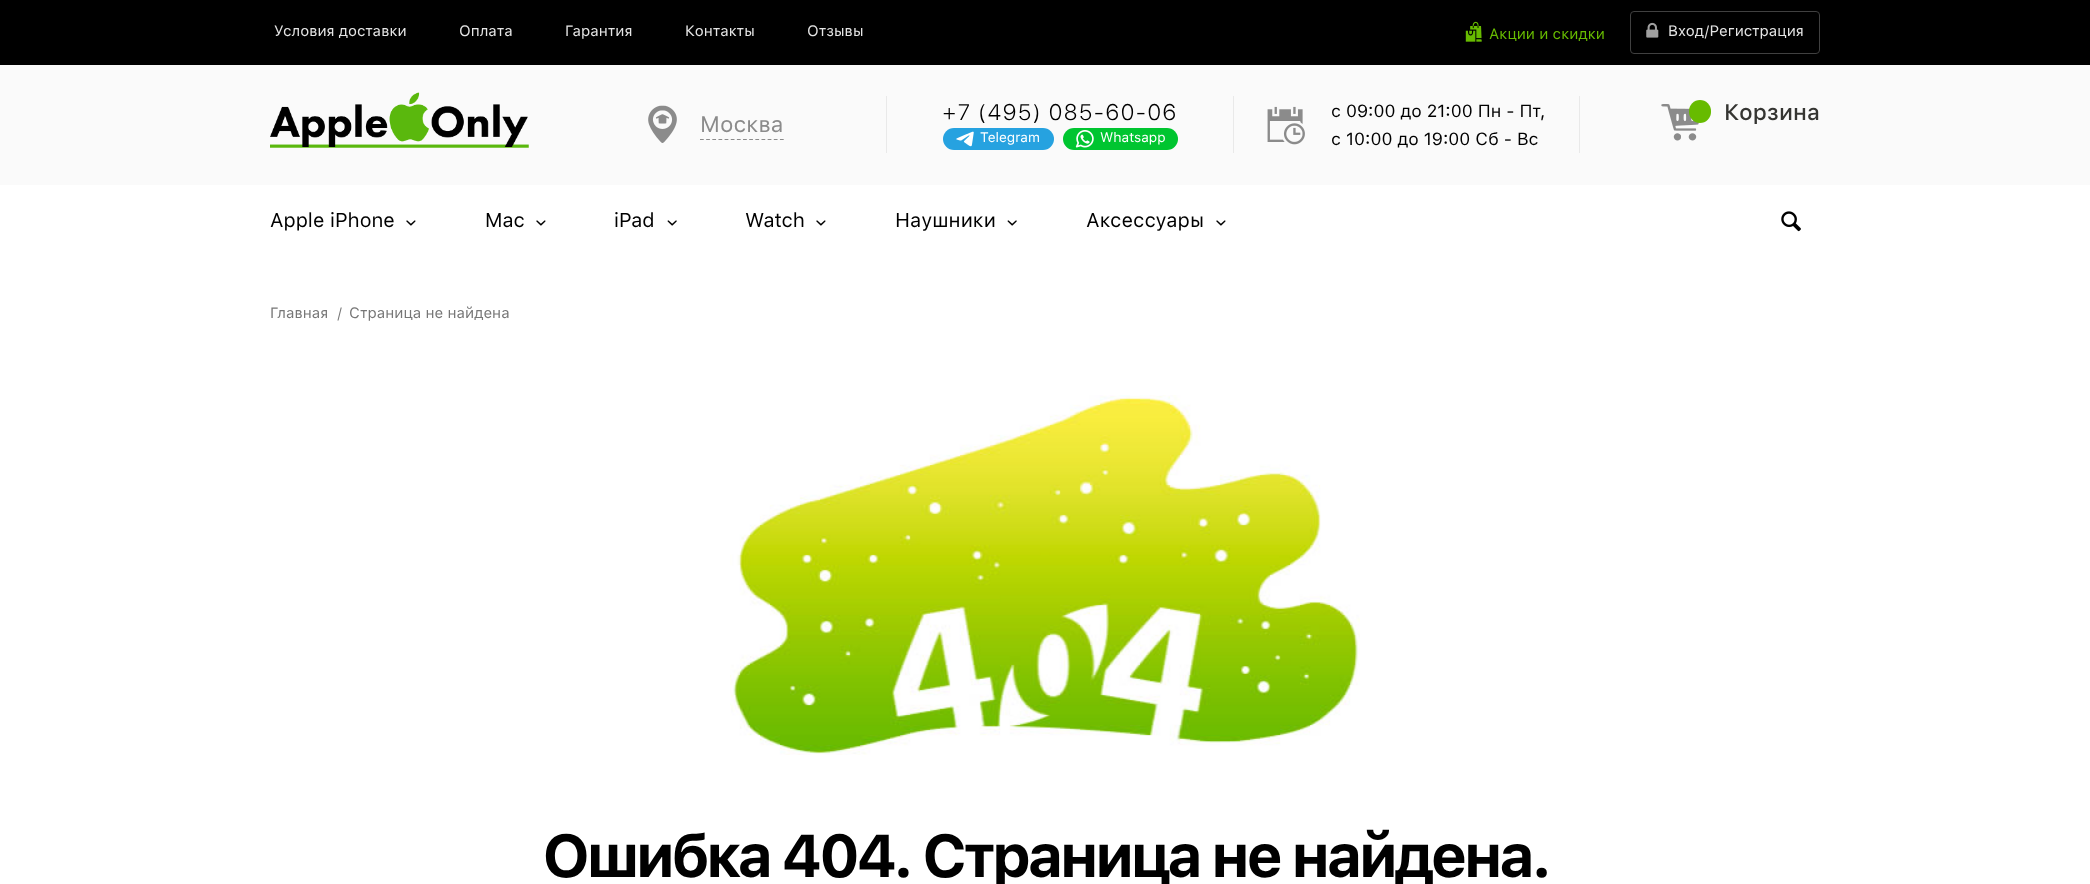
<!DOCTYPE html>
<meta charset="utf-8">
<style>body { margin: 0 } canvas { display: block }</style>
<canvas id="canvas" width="2090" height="884"></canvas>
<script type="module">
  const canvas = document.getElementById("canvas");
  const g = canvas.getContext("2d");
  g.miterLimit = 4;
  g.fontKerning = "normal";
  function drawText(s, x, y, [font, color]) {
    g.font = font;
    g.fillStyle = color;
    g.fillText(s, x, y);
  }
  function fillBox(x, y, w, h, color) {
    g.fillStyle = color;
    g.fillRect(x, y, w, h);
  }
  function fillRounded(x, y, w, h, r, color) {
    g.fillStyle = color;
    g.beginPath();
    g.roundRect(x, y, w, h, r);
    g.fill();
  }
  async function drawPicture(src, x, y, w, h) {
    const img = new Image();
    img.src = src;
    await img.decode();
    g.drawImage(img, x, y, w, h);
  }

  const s1 = ["15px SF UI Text", "#E5E5E5"];
  const s2 = ["15px SF UI Text", "#67BB00"];
  const s3 = ["22.5px SF UI Text", "#8B8B8B"];
  const s4 = ["300 22.5px SF UI Text", "#000000"];
  const s5 = ["13.75px SF UI Text", "#FFFFFF"];
  const s6 = ["17.5px SF UI Text", "#000000"];
  const s7 = ["500 22.5px SF UI Text", "#353532"];
  const s8 = ["20px SF UI Text", "#000000"];
  const s9 = ["15px SF UI Text", "#777777"];
  const s10 = ["bold 60px SF UI Text", "#000000"];

  fillBox(0, 0, 2090, 884, "#FFFFFF");
  fillBox(0, 0, 2090, 65, "#000000");
  drawText("Условия доставки", 274, 36, s1);
  drawText("Оплата", 459, 36, s1);
  drawText("Гарантия", 565, 36, s1);
  drawText("Контакты", 685, 36, s1);
  drawText("Отзывы", 807, 36, s1);
  await drawPicture("pic1.png", 1465, 21, 17, 21);
  drawText("Акции и скидки", 1489, 39, s2);
  g.beginPath();
  g.roundRect(1630.5, 11.5, 189, 42, 3.5);
  g.strokeStyle = "#404040";
  g.stroke();
  await drawPicture("pic2.png", 1646, 22, 13, 16);
  drawText("Вход/Регистрация", 1668, 36, s1);
  fillBox(0, 65, 2090, 120, "#FAFAFA");
  await drawPicture("pic3.png", 270, 92, 259, 56);
  fillBox(886, 96, 1, 57, "#E9E9E9");
  await drawPicture("pic4.png", 648, 105, 29, 38);
  g.beginPath();
  g.moveTo(700, 139.5);
  g.lineTo(784, 139.5);
  g.strokeStyle = "#8B8B8B";
  g.lineWidth = 1.2;
  g.setLineDash([3.75, 2.4]);
  g.stroke();
  drawText("Москва", 700, 132, s3);
  fillBox(1233, 96, 1, 57, "#E9E9E9");
  g.letterSpacing = "1px";
  drawText("+7 (495) 085-60-06", 942, 120, s4);
  fillRounded(943, 128, 111, 22, 11, "#26A2E0");
  await drawPicture("pic5.png", 956, 131, 18, 16);
  g.letterSpacing = "0px";
  drawText("Telegram", 980, 142, s5);
  fillRounded(1063, 128, 115, 22, 11, "#00C530");
  await drawPicture("pic6.png", 1075, 130, 19, 18);
  drawText("Whatsapp", 1100, 142, s5);
  fillBox(1579, 96, 1, 57, "#E9E9E9");
  await drawPicture("pic7.png", 1267, 106, 38, 39);
  drawText("с 09:00 до 21:00 Пн - Пт,", 1331, 117, s6);
  drawText("с 10:00 до 19:00 Сб - Вс", 1331, 145, s6);
  await drawPicture("pic8.png", 1661, 104, 38, 37);
  fillRounded(1689, 100, 22, 23, 11, "#67BB00");
  drawText("Корзина", 1724, 120, s7);
  drawText("Apple iPhone", 270, 227, s8);
  await drawPicture("pic9.png", 406, 220, 10, 6);
  drawText("Mac", 485, 227, s8);
  await drawPicture("pic9.png", 536, 220, 10, 6);
  drawText("iPad", 614, 227, s8);
  await drawPicture("pic10.png", 667, 220, 10, 6);
  drawText("Watch", 745, 227, s8);
  await drawPicture("pic9.png", 816, 220, 10, 6);
  drawText("Наушники", 895, 227, s8);
  await drawPicture("pic10.png", 1007, 220, 10, 6);
  drawText("Аксессуары", 1086, 227, s8);
  await drawPicture("pic9.png", 1216, 220, 10, 6);
  await drawPicture("pic11.png", 1781, 211, 20, 21);
  drawText("Главная", 270, 318, s9);
  drawText("/", 337, 318, s9);
  drawText("Страница не найдена", 349, 318, s9);
  await drawPicture("pic12.png", 730, 395, 630, 360);
  g.letterSpacing = "-3.75px";
  drawText("Ошибка 404. Страница не найдена.", 542, 877, s10);
</script>
